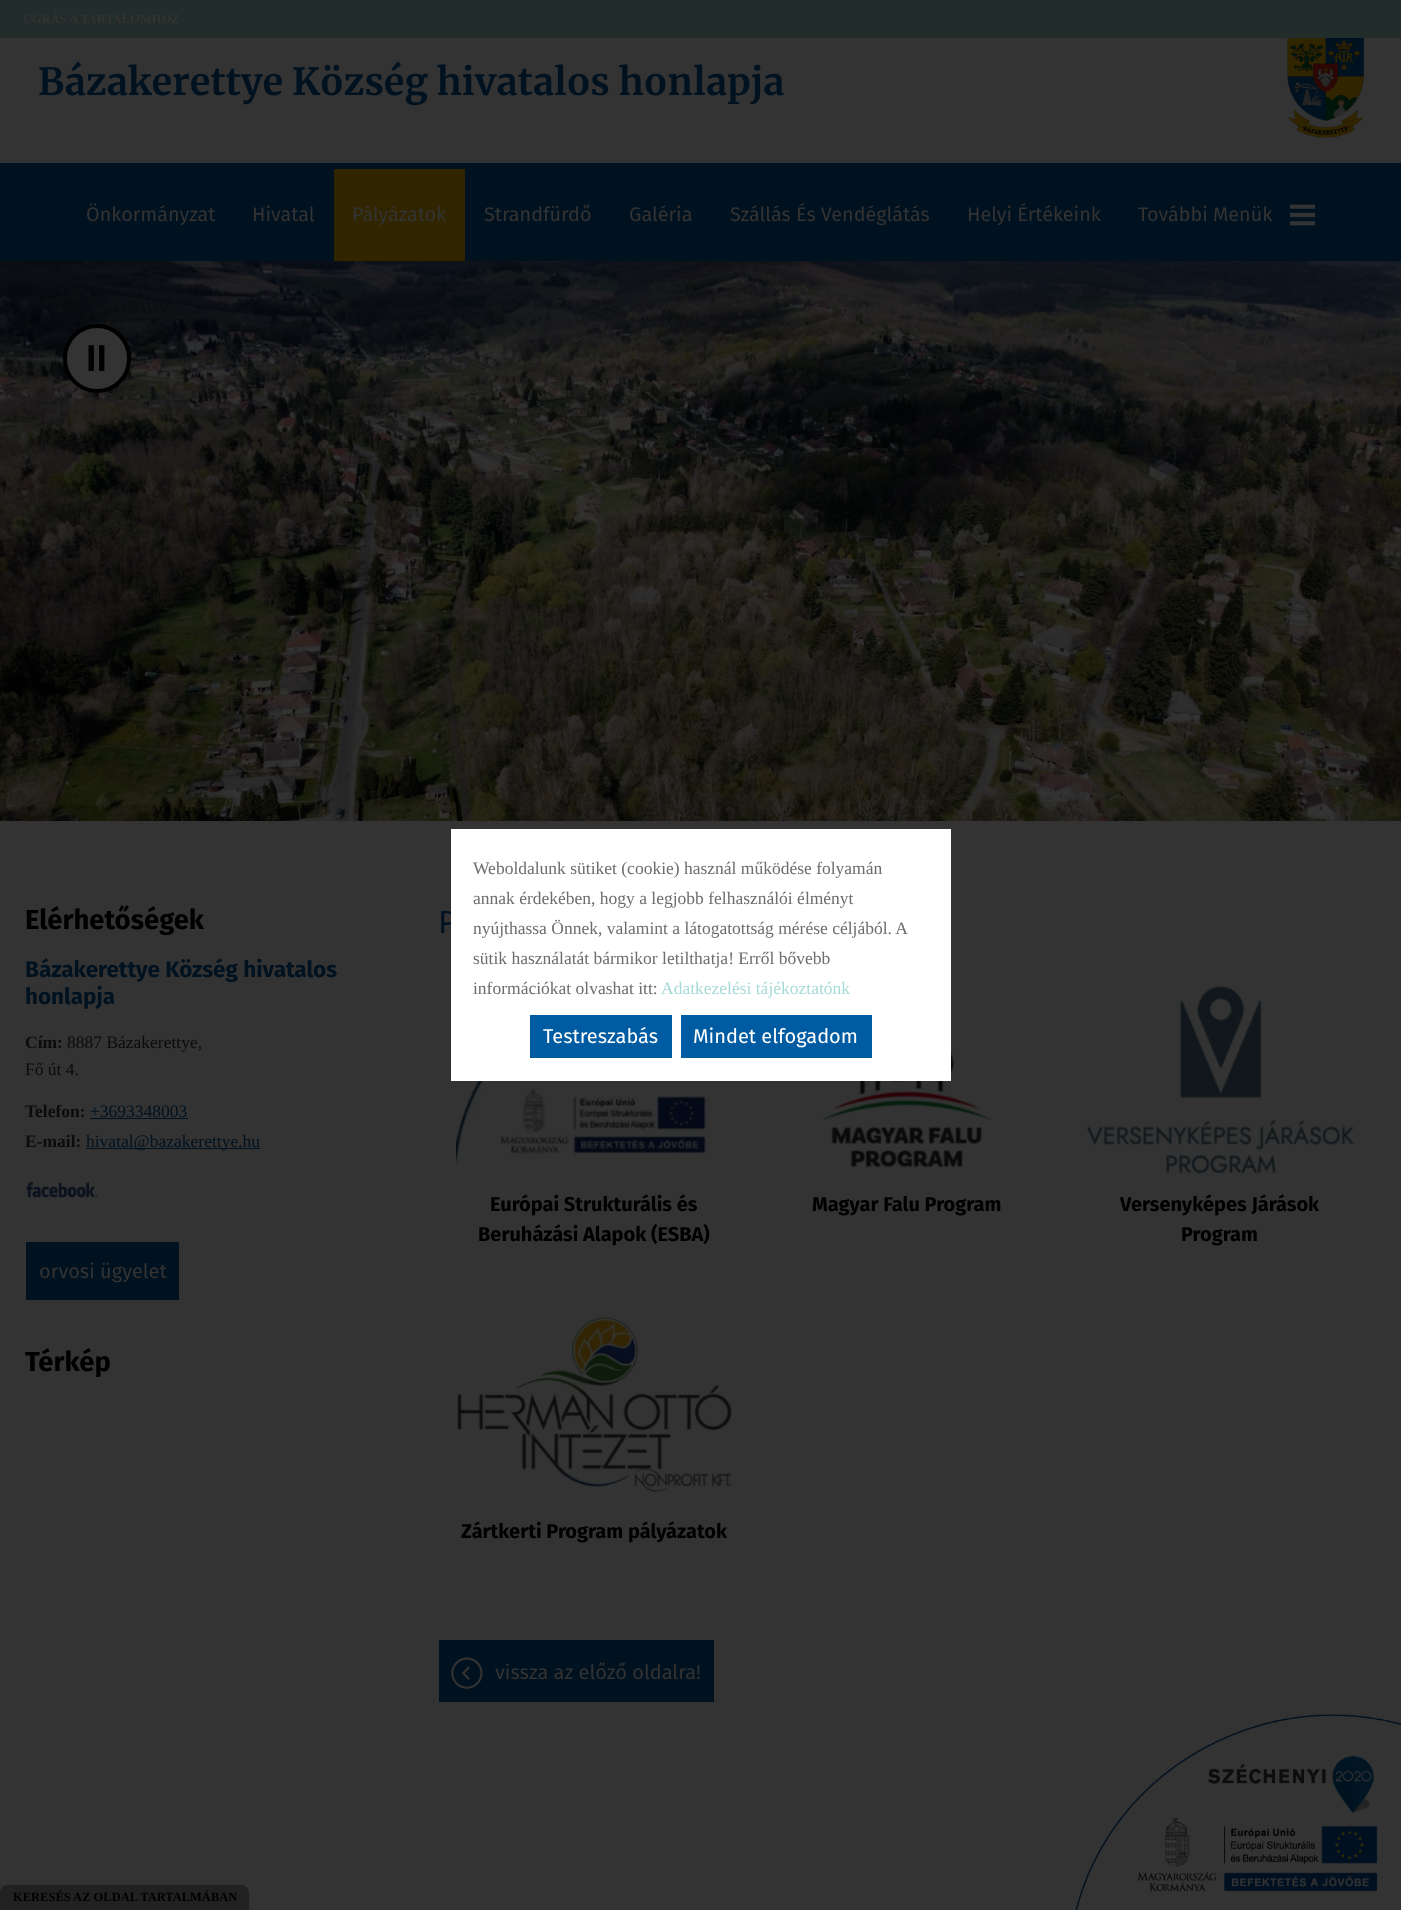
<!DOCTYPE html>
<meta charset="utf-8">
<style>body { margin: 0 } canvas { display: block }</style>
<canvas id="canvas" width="1401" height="1910"></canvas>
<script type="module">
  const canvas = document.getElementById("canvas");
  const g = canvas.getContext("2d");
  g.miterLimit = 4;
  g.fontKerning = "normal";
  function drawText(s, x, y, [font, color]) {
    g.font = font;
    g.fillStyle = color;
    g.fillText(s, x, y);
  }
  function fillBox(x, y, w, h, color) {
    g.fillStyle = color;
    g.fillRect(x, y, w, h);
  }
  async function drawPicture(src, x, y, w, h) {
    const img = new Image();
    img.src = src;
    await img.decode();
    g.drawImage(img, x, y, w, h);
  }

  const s1 = ["bold 12.5px Liberation Serif", "#333333"];
  const s2 = ["bold 37.5px Merriweather", "#001220"];
  const s3 = ["19.75px Fira Sans", "#333333"];
  const s4 = ["bold 37.5px Liberation Sans", "#000000"];
  const s5 = ["bold 27.5px Fira Sans", "#000000"];
  const s6 = ["bold 22.5px Fira Sans", "#001220"];
  const s7 = ["bold 17.5px Liberation Serif", "#0C0C0C"];
  const s8 = ["17.5px Liberation Serif", "#0C0C0C"];
  const s9 = ["17.5px Liberation Serif", "#001220"];
  const s10 = ["20px Fira Sans", "#333333"];
  const s11 = ["32px Fira Sans", "#001220"];
  const s12 = ["bold 20px Fira Sans", "#000000"];
  const s13 = ["17.5px Liberation Serif", "#6D6D6D"];
  const s14 = ["17.5px Liberation Serif", "#A7DBD8"];
  const s15 = ["20px Fira Sans", "#FFFFFF"];
  const s16 = ["bold 12.5px Liberation Serif", "#000000"];

  fillBox(0, 0, 1401, 1910, "#333333");
  fillBox(0, 0, 1401, 38, "#212C2B");
  drawText("UGRÁS A TARTALOMHOZ", 23, 23, s1);
  drawText("Bázakerettye Község hivatalos honlapja", 38, 95, s2);
  await drawPicture("pic1.png", 1287, 38, 77, 100);
  fillBox(0, 163, 1401, 98, "#001220");
  drawText("Önkormányzat", 86, 221, s3);
  drawText("Hivatal", 252, 221, s3);
  fillBox(334, 169, 131, 92, "#312500");
  drawText("Pályázatok", 352, 221, s3);
  drawText("Strandfürdő", 484, 221, s3);
  drawText("Galéria", 629, 221, s3);
  drawText("Szállás És Vendéglátás", 730, 221, s3);
  drawText("Helyi Értékeink", 967, 221, s3);
  drawText("További Menük", 1138, 221, s3);
  await drawPicture("pic2.png", 1290, 204, 25, 22);
  await drawPicture("pic4.png", 1400, 261, 1, 560);
  await drawPicture("pic3.png", 0, 261, 1401, 560);
  g.beginPath();
  g.roundRect(65, 326, 64, 65, 32);
  g.fill();
  g.strokeStyle = "#000000";
  g.lineWidth = 4;
  g.stroke();
  drawText("II", 86, 371, s4);
  drawText("Elérhetőségek", 25, 929, s5);
  drawText("Bázakerettye Község hivatalos", 25, 977, s6);
  drawText("honlapja", 25, 1004, s6);
  drawText("Cím:", 25, 1048, s7);
  drawText("8887 Bázakerettye,", 67, 1048, s8);
  drawText("Fő út 4.", 25, 1075, s8);
  drawText("Telefon:", 25, 1117, s7);
  drawText("+3693348003", 90, 1117, s9);
  fillBox(90, 1118, 98, 1, "#001220");
  drawText("E-mail:", 25, 1147, s7);
  fillBox(86, 1148, 174, 1, "#001220");
  drawText("hivatal@bazakerettye.hu", 86, 1147, s9);
  await drawPicture("pic5.png", 26, 1182, 72, 16);
  fillBox(26, 1242, 153, 58, "#001220");
  drawText("orvosi ügyelet", 39, 1278, s10);
  drawText("Térkép", 25, 1371, s5);
  drawText("P", 438, 933, s11);
  await drawPicture("pic6.png", 456, 1081, 276, 88);
  drawText("Európai Strukturális és", 490, 1211, s12);
  drawText("Beruházási Alapok (ESBA)", 478, 1241, s12);
  await drawPicture("pic7.png", 821, 986, 171, 182);
  drawText("Magyar Falu Program", 812, 1211, s12);
  await drawPicture("pic8.png", 1086, 985, 269, 189);
  drawText("Versenyképes Járások", 1120, 1211, s12);
  drawText("Program", 1181, 1241, s12);
  await drawPicture("pic9.png", 457, 1316, 275, 176);
  drawText("Zártkerti Program pályázatok", 461, 1538, s12);
  fillBox(439, 1640, 275, 62, "#001220");
  await drawPicture("pic10.png", 451, 1657, 32, 32);
  drawText("vissza az előző oldalra!", 495, 1679, s10);
  await drawPicture("pic11.png", 1075, 1714, 326, 196);
  fillBox(451, 829, 500, 252, "#FFFFFF");
  drawText("Weboldalunk sütiket (cookie) használ működése folyamán", 473, 874, s13);
  drawText("annak érdekében, hogy a legjobb felhasználói élményt", 473, 904, s13);
  drawText("nyújthassa Önnek, valamint a látogatottság mérése céljából. A", 473, 934, s13);
  drawText("sütik használatát bármikor letilthatja! Erről bővebb", 473, 964, s13);
  drawText("információkat olvashat itt:", 473, 994, s13);
  drawText("Adatkezelési tájékoztatónk", 661, 994, s14);
  fillBox(530, 1015, 142, 43, "#005CA2");
  drawText("Testreszabás", 543, 1043, s15);
  fillBox(681, 1015, 191, 43, "#005CA2");
  drawText("Mindet elfogadom", 693, 1043, s15);
  g.fillStyle = "#212121";
  g.beginPath();
  g.roundRect(0, 1885, 249, 25, [8, 8, 0, 0]);
  g.fill();
  drawText("KERESÉS AZ OLDAL TARTALMÁBAN", 13, 1901, s16);
</script>
